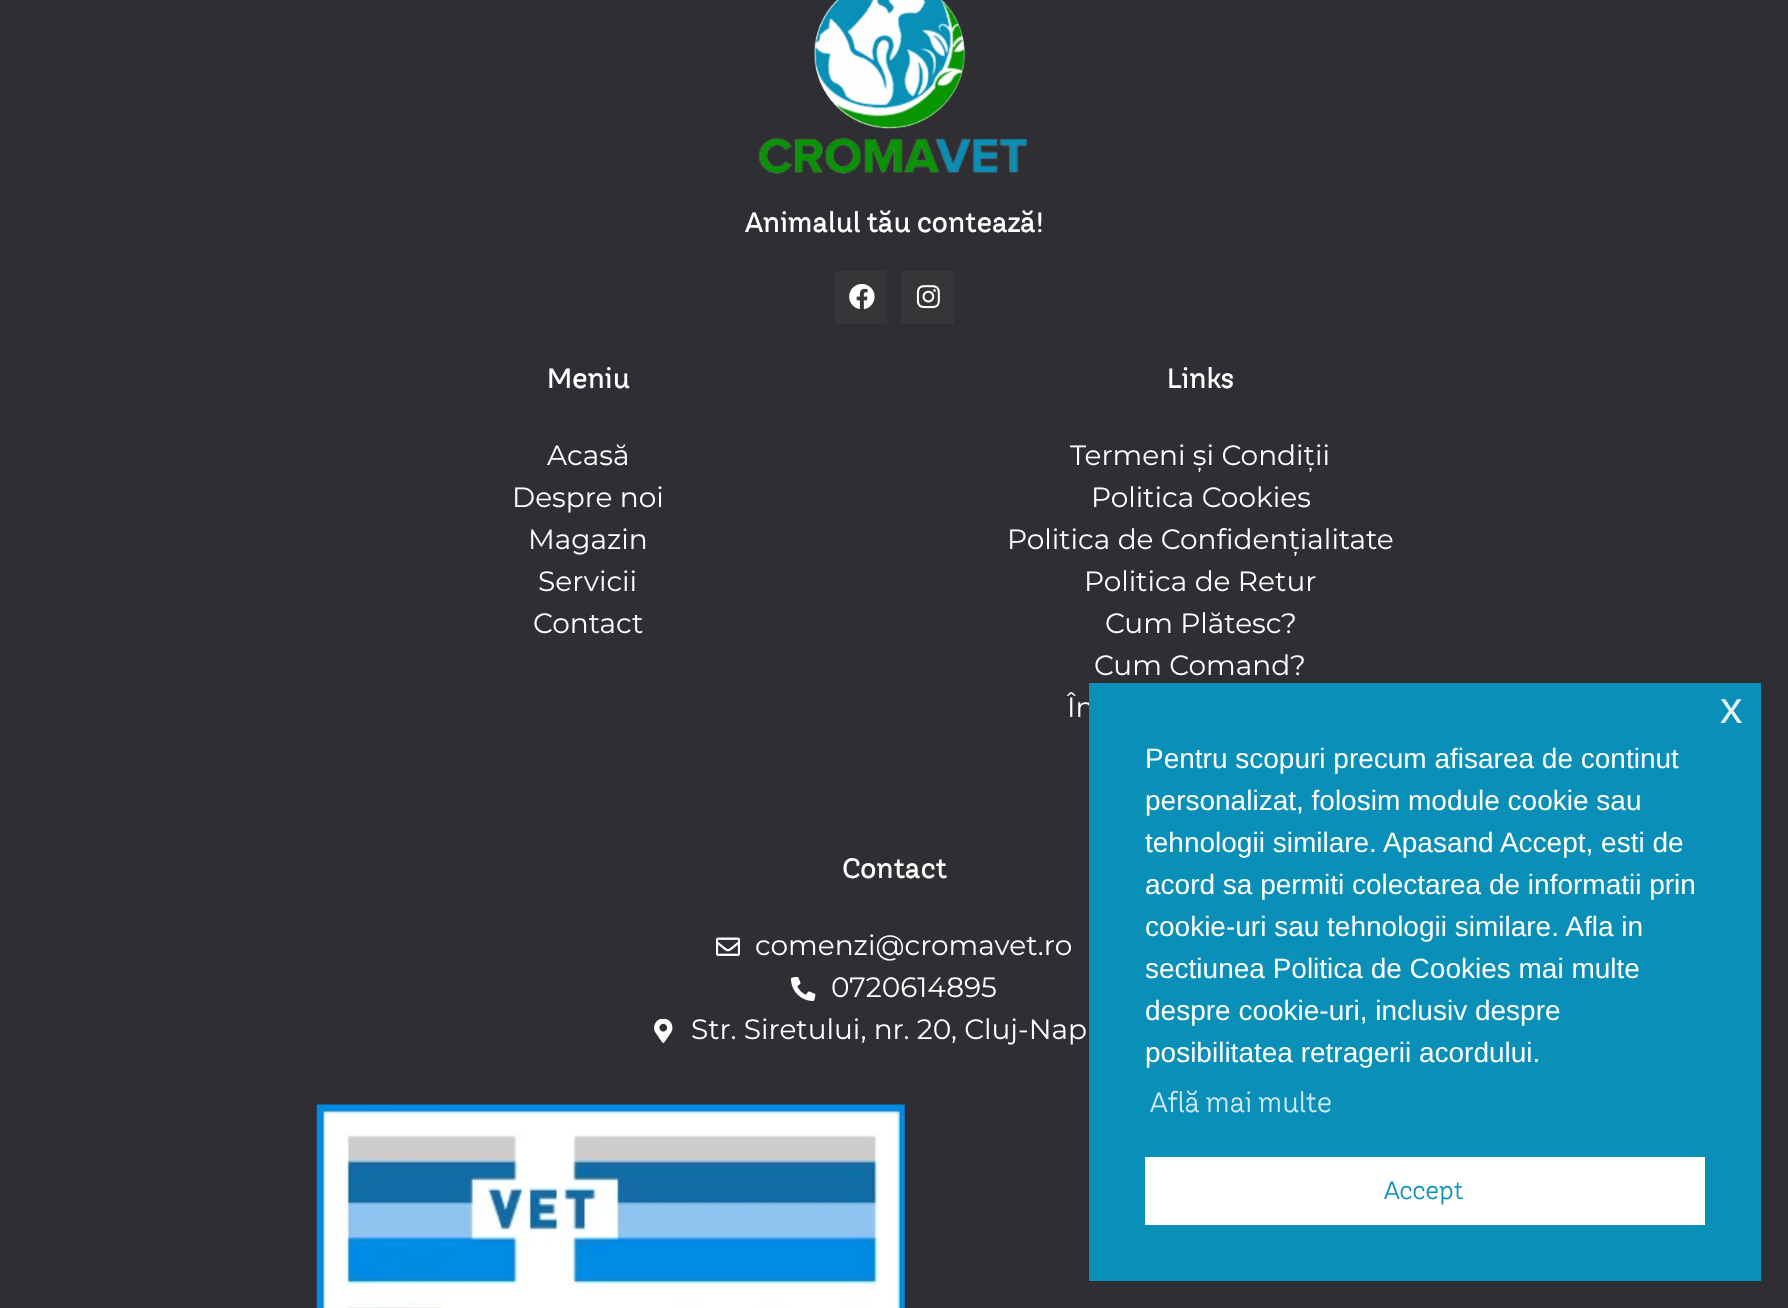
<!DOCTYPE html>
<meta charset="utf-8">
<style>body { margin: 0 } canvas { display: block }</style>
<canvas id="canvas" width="1788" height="1308"></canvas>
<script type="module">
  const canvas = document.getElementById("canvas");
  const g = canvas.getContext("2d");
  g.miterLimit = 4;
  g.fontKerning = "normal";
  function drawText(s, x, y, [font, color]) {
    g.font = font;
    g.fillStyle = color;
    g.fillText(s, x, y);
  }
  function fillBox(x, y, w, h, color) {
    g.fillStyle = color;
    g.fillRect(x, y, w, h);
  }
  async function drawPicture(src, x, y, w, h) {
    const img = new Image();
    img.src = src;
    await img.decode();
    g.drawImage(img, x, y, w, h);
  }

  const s1 = ["500 28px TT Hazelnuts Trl", "#FFFFFF"];
  const s2 = ["28px Montserrat", "#FFFFFF"];
  const s3 = ["45px Liberation Sans", "#E7F4F8"];
  const s4 = ["28px Liberation Sans", "#FFFFFF"];
  const s5 = ["28px TT Hazelnuts Trl", "#CEE9F1"];
  const s6 = ["25px TT Hazelnuts Trl", "#0A90B8"];

  fillBox(0, 0, 1788, 1308, "#2F2E33");
  await drawPicture("pic1.png", 758, 0, 270, 174);
  drawText("Animalul tău contează!", 745, 232, s1);
  fillBox(835, 271, 52, 53, "#363638");
  await drawPicture("pic2.png", 849, 284, 26, 26);
  fillBox(901, 271, 53, 53, "#363638");
  await drawPicture("pic3.png", 916, 285, 24, 24);
  drawText("Meniu", 547, 388, s1);
  drawText("Acasă", 547, 465, s2);
  drawText("Despre noi", 512, 507, s2);
  drawText("Magazin", 528, 549, s2);
  drawText("Servicii", 538, 591, s2);
  drawText("Contact", 533, 633, s2);
  drawText("Links", 1167, 388, s1);
  drawText("Termeni și Condiții", 1070, 465, s2);
  drawText("Politica Cookies", 1091, 507, s2);
  drawText("Politica de Confidențialitate", 1007, 549, s2);
  drawText("Politica de Retur", 1084, 591, s2);
  drawText("Cum Plătesc?", 1105, 633, s2);
  drawText("Cum Comand?", 1094, 675, s2);
  drawText("În", 1067, 717, s2);
  drawText("Contact", 842, 878, s1);
  await drawPicture("pic4.png", 716, 937, 24, 19);
  drawText("comenzi@cromavet.ro", 755, 955, s2);
  await drawPicture("pic5.png", 791, 977, 25, 24);
  drawText("0720614895", 831, 997, s2);
  await drawPicture("pic6.png", 654, 1019, 19, 24);
  drawText("Str. Siretului, nr. 20, Cluj-Nap", 691, 1039, s2);
  await drawPicture("pic7.png", 316, 1104, 589, 204);
  fillBox(1089, 683, 672, 598, "#0A90B8");
  drawText("x", 1720, 723, s3);
  drawText("Pentru scopuri precum afisarea de continut", 1145, 768, s4);
  drawText("personalizat, folosim module cookie sau", 1145, 810, s4);
  drawText("tehnologii similare. Apasand Accept, esti de", 1145, 852, s4);
  drawText("acord sa permiti colectarea de informatii prin", 1145, 894, s4);
  drawText("cookie-uri sau tehnologii similare. Afla in", 1145, 936, s4);
  drawText("sectiunea Politica de Cookies mai multe", 1145, 978, s4);
  drawText("despre cookie-uri, inclusiv despre", 1145, 1020, s4);
  drawText("posibilitatea retragerii acordului.", 1145, 1062, s4);
  drawText("Află mai multe", 1150, 1112, s5);
  fillBox(1145, 1157, 560, 68, "#FFFFFF");
  drawText("Accept", 1384, 1199, s6);
</script>
